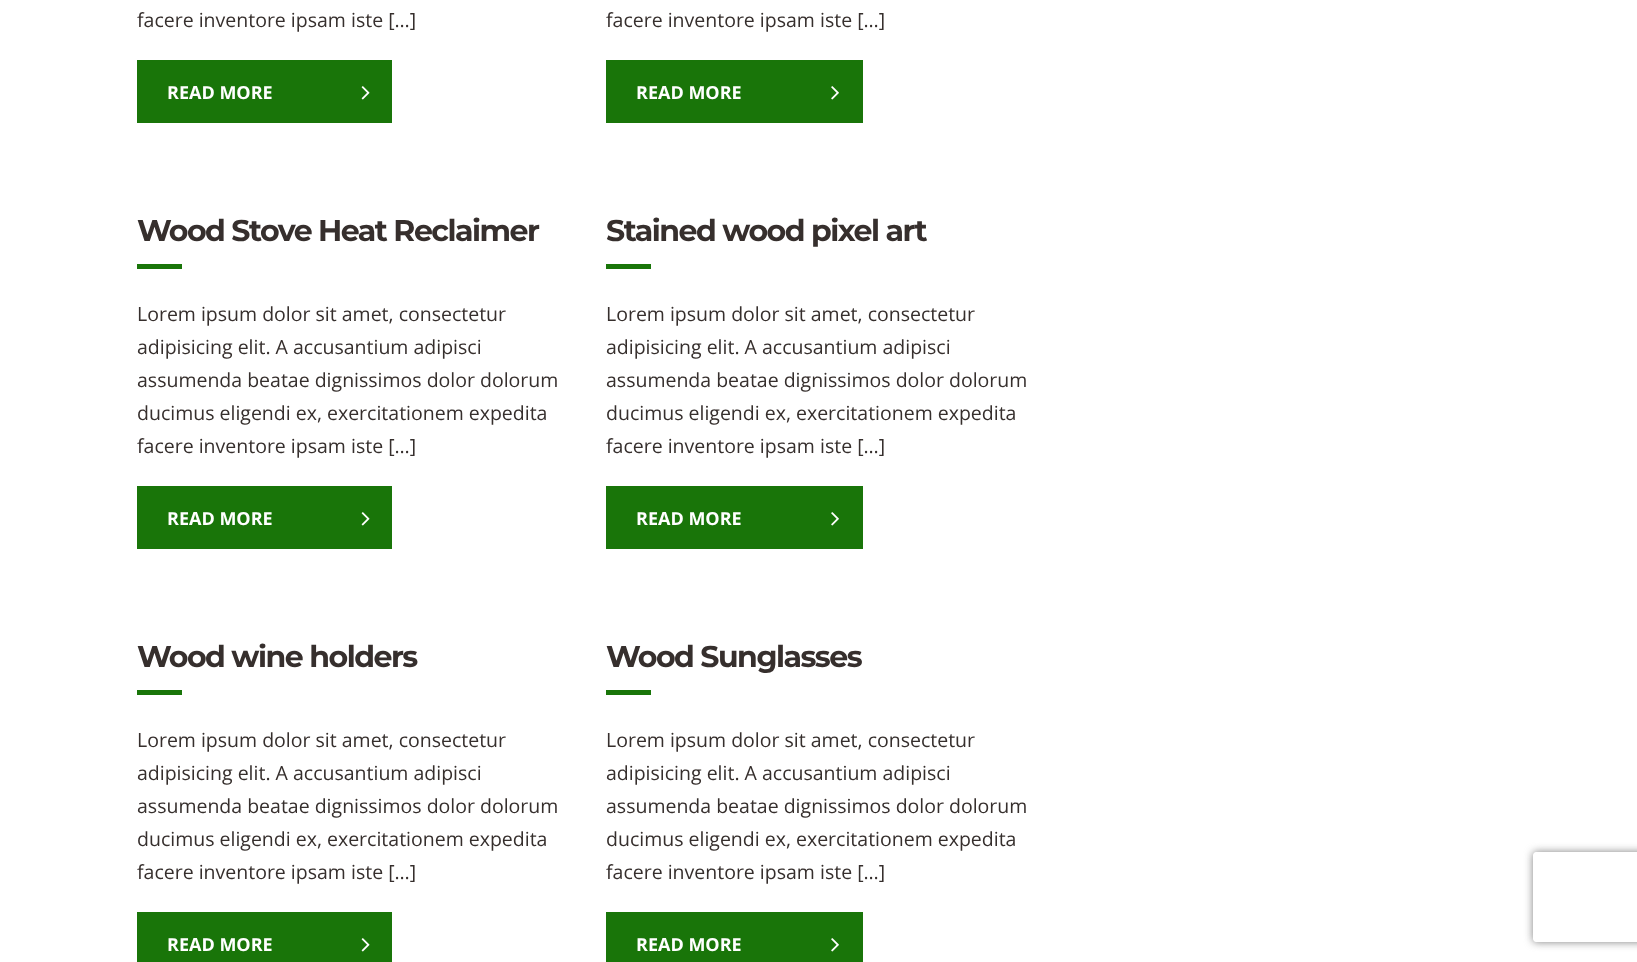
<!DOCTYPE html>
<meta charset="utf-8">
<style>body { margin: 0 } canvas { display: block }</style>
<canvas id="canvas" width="1637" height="962"></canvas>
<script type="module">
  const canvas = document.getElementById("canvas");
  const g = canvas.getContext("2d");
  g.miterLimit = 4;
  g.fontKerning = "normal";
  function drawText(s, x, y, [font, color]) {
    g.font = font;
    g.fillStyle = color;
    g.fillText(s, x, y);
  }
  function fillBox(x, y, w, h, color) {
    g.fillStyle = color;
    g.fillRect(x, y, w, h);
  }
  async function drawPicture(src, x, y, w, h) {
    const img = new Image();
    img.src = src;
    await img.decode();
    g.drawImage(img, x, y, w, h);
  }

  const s1 = ["19.5px Open Sans", "#362F2D"];
  const s2 = ["bold 18px Open Sans", "#FFFFFF"];
  const s3 = ["100 30px Montserrat", "#362F2D"];

  fillBox(0, 0, 1637, 962, "#FFFFFF");
  drawText("facere inventore ipsam iste […]", 137, 27, s1);
  fillBox(137, 60, 255, 63, "#197509");
  drawText("READ MORE", 167, 99, s2);
  await drawPicture("pic1.png", 361, 86, 9, 14);
  drawText("facere inventore ipsam iste […]", 606, 27, s1);
  fillBox(606, 60, 257, 63, "#197509");
  drawText("READ MORE", 636, 99, s2);
  await drawPicture("pic2.png", 831, 86, 8, 14);
  g.letterSpacing = "-1.5px";
  drawText("Wood Stove Heat Reclaimer", 137, 241, s3);
  fillBox(137, 264, 45, 5, "#197509");
  g.letterSpacing = "0px";
  drawText("Lorem ipsum dolor sit amet, consectetur", 137, 321, s1);
  drawText("adipisicing elit. A accusantium adipisci", 137, 354, s1);
  drawText("assumenda beatae dignissimos dolor dolorum", 137, 387, s1);
  drawText("ducimus eligendi ex, exercitationem expedita", 137, 420, s1);
  drawText("facere inventore ipsam iste […]", 137, 453, s1);
  fillBox(137, 486, 255, 63, "#197509");
  drawText("READ MORE", 167, 525, s2);
  await drawPicture("pic1.png", 361, 512, 9, 14);
  g.letterSpacing = "-1.5px";
  drawText("Stained wood pixel art", 606, 241, s3);
  fillBox(606, 264, 45, 5, "#197509");
  g.letterSpacing = "0px";
  drawText("Lorem ipsum dolor sit amet, consectetur", 606, 321, s1);
  drawText("adipisicing elit. A accusantium adipisci", 606, 354, s1);
  drawText("assumenda beatae dignissimos dolor dolorum", 606, 387, s1);
  drawText("ducimus eligendi ex, exercitationem expedita", 606, 420, s1);
  drawText("facere inventore ipsam iste […]", 606, 453, s1);
  fillBox(606, 486, 257, 63, "#197509");
  drawText("READ MORE", 636, 525, s2);
  await drawPicture("pic2.png", 831, 512, 8, 14);
  g.letterSpacing = "-1.5px";
  drawText("Wood wine holders", 137, 667, s3);
  fillBox(137, 690, 45, 5, "#197509");
  g.letterSpacing = "0px";
  drawText("Lorem ipsum dolor sit amet, consectetur", 137, 747, s1);
  drawText("adipisicing elit. A accusantium adipisci", 137, 780, s1);
  drawText("assumenda beatae dignissimos dolor dolorum", 137, 813, s1);
  drawText("ducimus eligendi ex, exercitationem expedita", 137, 846, s1);
  drawText("facere inventore ipsam iste […]", 137, 879, s1);
  fillBox(137, 912, 255, 50, "#197509");
  drawText("READ MORE", 167, 951, s2);
  await drawPicture("pic1.png", 361, 938, 9, 14);
  g.letterSpacing = "-1.5px";
  drawText("Wood Sunglasses", 606, 667, s3);
  fillBox(606, 690, 45, 5, "#197509");
  g.letterSpacing = "0px";
  drawText("Lorem ipsum dolor sit amet, consectetur", 606, 747, s1);
  drawText("adipisicing elit. A accusantium adipisci", 606, 780, s1);
  drawText("assumenda beatae dignissimos dolor dolorum", 606, 813, s1);
  drawText("ducimus eligendi ex, exercitationem expedita", 606, 846, s1);
  drawText("facere inventore ipsam iste […]", 606, 879, s1);
  fillBox(606, 912, 257, 50, "#197509");
  drawText("READ MORE", 636, 951, s2);
  await drawPicture("pic2.png", 831, 938, 8, 14);
  g.save();
  g.beginPath();
  g.moveTo(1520, 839);
  g.lineTo(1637, 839);
  g.lineTo(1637, 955);
  g.lineTo(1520, 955);
  g.closePath();
  g.moveTo(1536, 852);
  g.lineTo(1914, 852);
  g.bezierCurveTo(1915.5, 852, 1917, 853.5, 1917, 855);
  g.lineTo(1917, 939);
  g.bezierCurveTo(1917, 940.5, 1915.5, 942, 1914, 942);
  g.lineTo(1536, 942);
  g.bezierCurveTo(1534.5, 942, 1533, 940.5, 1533, 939);
  g.lineTo(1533, 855);
  g.bezierCurveTo(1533, 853.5, 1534.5, 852, 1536, 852);
  g.closePath();
  g.clip("evenodd");
  g.fillStyle = "#808080";
  g.filter = "blur(4px)";
  g.beginPath();
  g.roundRect(1533, 852, 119, 90, 3);
  g.fill();
  g.filter = "none";
  g.restore();
</script>
